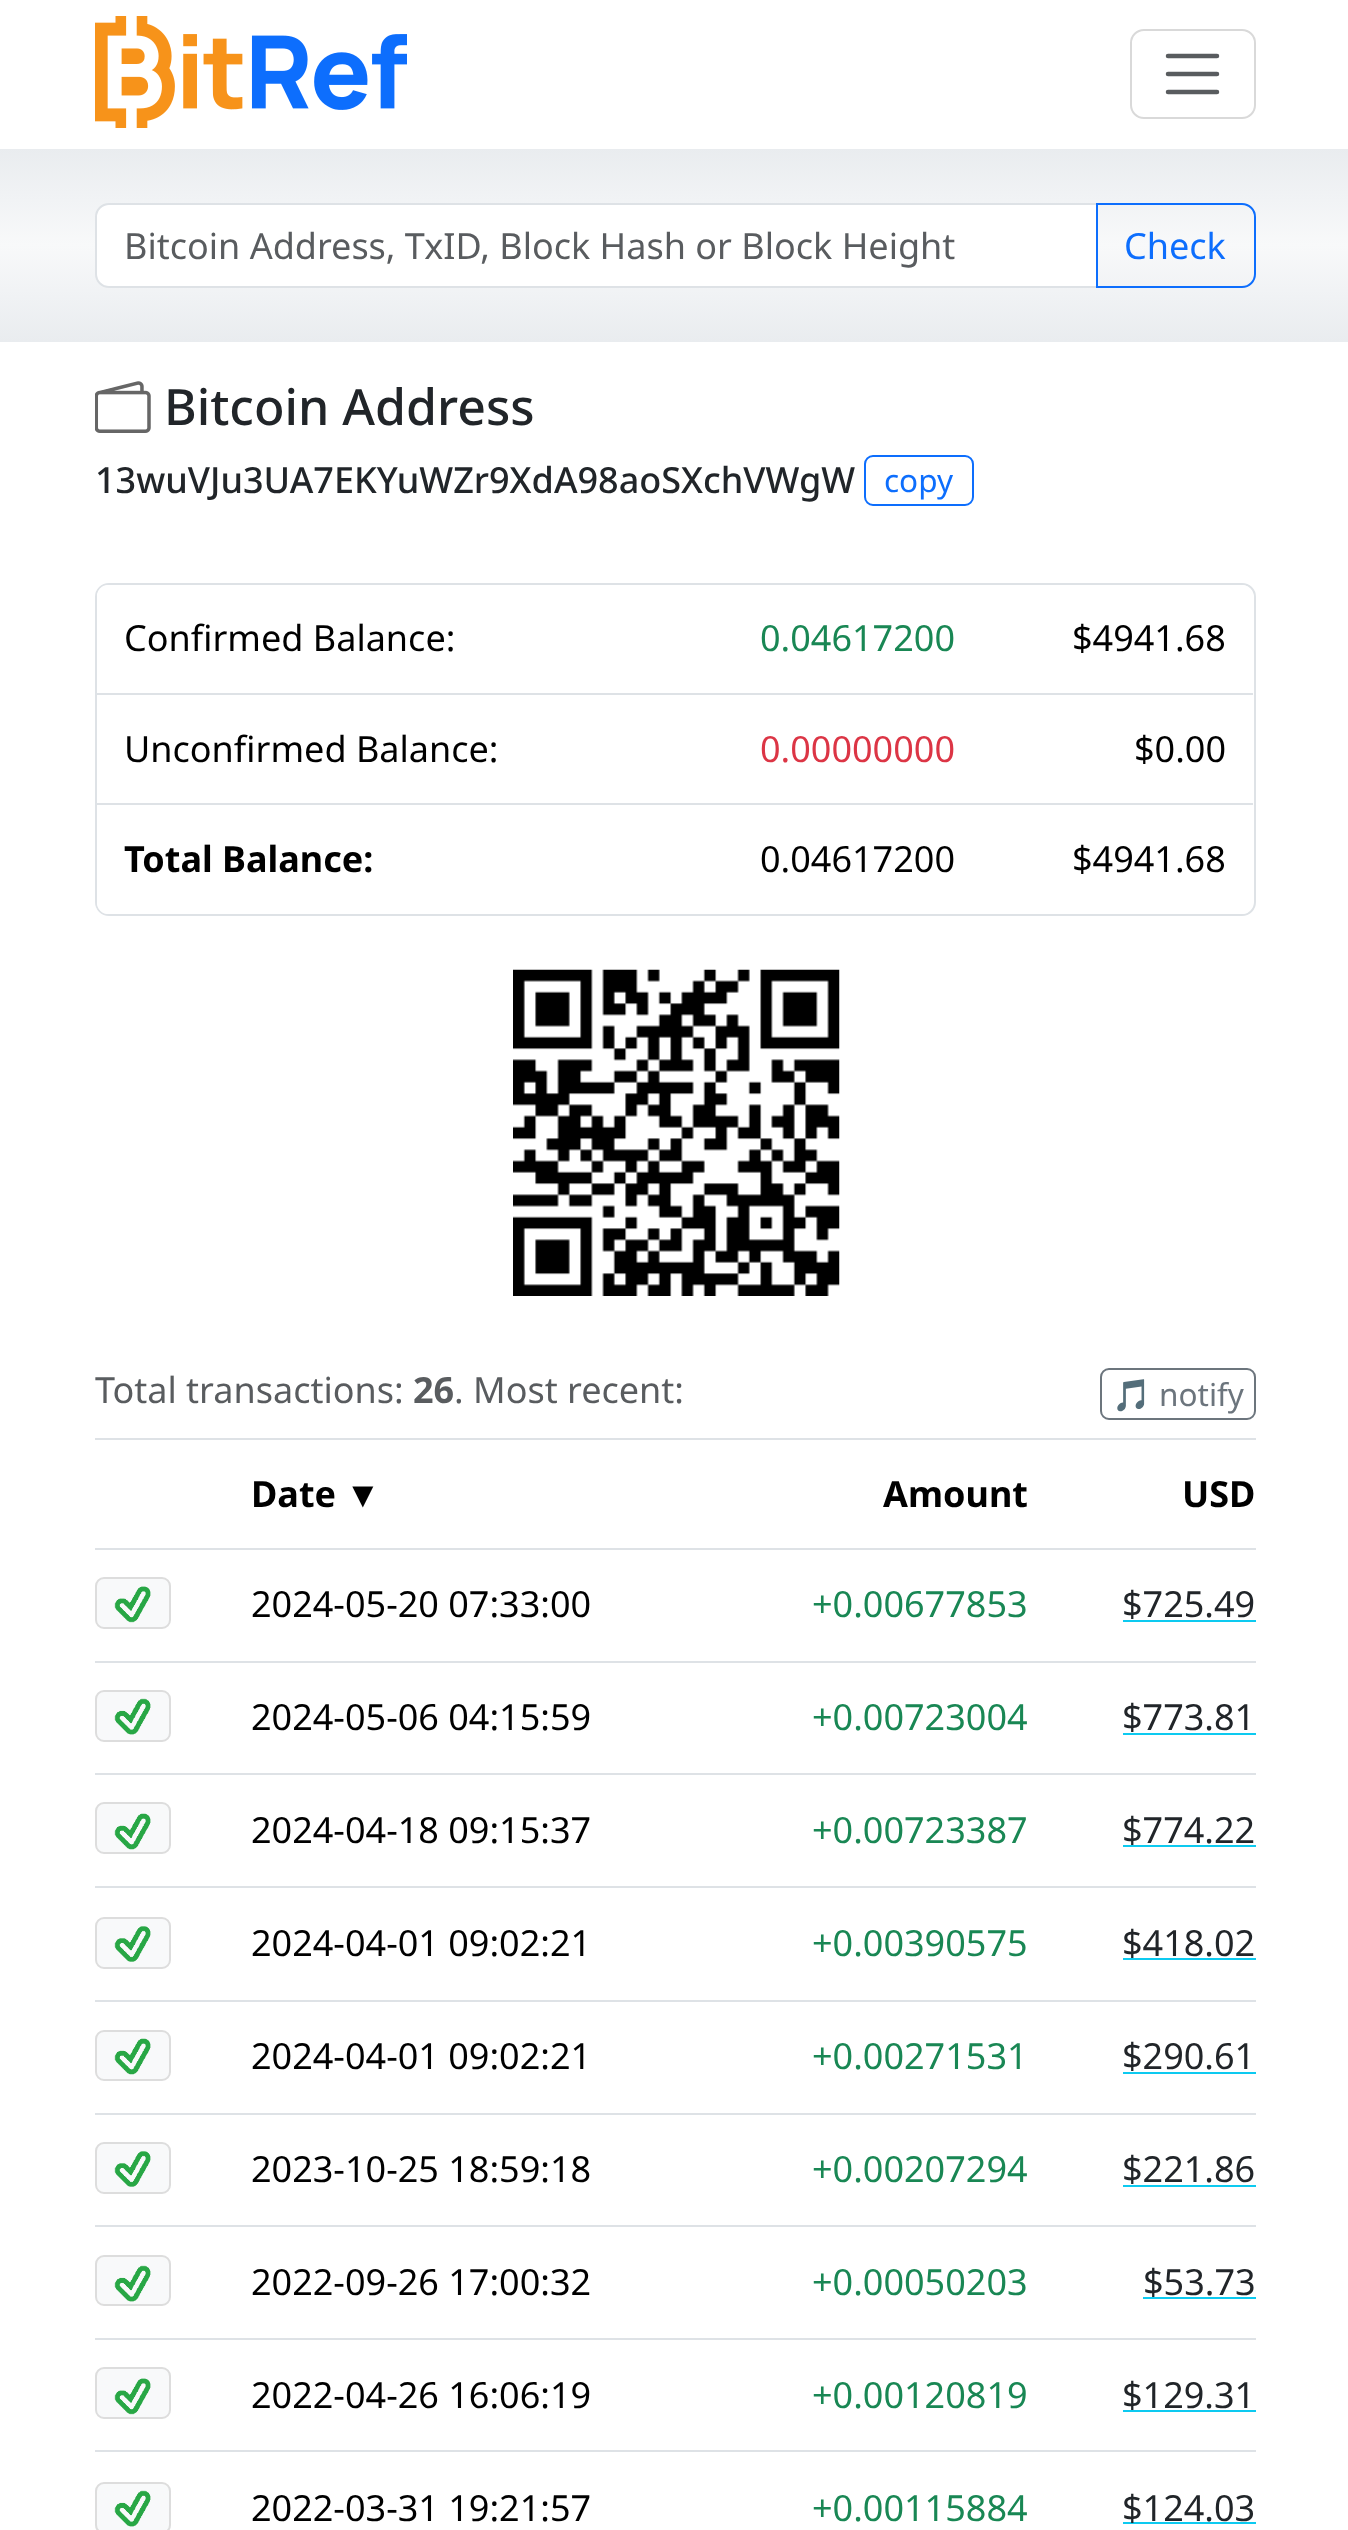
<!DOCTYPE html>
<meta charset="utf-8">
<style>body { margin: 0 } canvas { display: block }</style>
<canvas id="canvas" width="1348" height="2530"></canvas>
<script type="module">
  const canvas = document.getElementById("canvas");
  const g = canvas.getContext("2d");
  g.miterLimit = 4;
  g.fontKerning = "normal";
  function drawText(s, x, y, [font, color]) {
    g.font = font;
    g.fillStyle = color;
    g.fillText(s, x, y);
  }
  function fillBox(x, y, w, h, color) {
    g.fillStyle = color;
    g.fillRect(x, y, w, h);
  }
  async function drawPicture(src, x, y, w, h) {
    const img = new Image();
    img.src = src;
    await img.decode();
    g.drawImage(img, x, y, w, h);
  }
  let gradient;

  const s1 = ["36px Noto Sans", "#595C5F"];
  const s2 = ["36px Noto Sans", "#0D6EFD"];
  const s3 = ["500 50px Noto Sans", "#212529"];
  const s4 = ["500 36px Noto Sans", "#212529"];
  const s5 = ["31.5px Noto Sans", "#0D6EFD"];
  const s6 = ["36px Noto Sans", "#000000"];
  const s7 = ["36px Noto Sans", "#198754"];
  const s8 = ["36px Noto Sans", "#DC3545"];
  const s9 = ["bold 36px Noto Sans", "#000000"];
  const s10 = ["bold 36px Noto Sans", "#595C5F"];
  const s11 = ["31.5px Noto Color Emoji", "#6C757D"];
  const s12 = ["31.5px Noto Sans", "#6C757D"];
  const s13 = ["bold 36px Liberation Sans", "#000000"];
  const s14 = ["36px Noto Sans", "#212529"];

  fillBox(0, 0, 1348, 2530, "#FFFFFF");
  await drawPicture("pic1.png", 95, 16, 312, 112);
  g.beginPath();
  g.roundRect(1131, 30, 124, 88, 13);
  g.strokeStyle = "#D9D9D9";
  g.lineWidth = 2;
  g.stroke();
  g.beginPath();
  g.moveTo(1168, 56);
  g.lineTo(1217, 56);
  g.moveTo(1168, 74);
  g.lineTo(1217, 74);
  g.moveTo(1168, 92);
  g.lineTo(1217, 92);
  g.strokeStyle = "#595C5F";
  g.lineWidth = 4.5;
  g.lineCap = "round";
  g.stroke();
  gradient = g.createLinearGradient(675, 148, 675, 342);
  gradient.addColorStop(0, "#E9ECEF");
  gradient.addColorStop(0.5, "#F8F9FA");
  gradient.addColorStop(1, "#E9ECEF");
  g.fillStyle = gradient;
  g.fillRect(0, 149, 1348, 193);
  g.fillStyle = "#FFFFFF";
  g.beginPath();
  g.roundRect(97, 205, 999, 81, [11, 0, 0, 11]);
  g.fill();
  g.beginPath();
  g.roundRect(96, 204, 1001, 83, [13, 0, 0, 13]);
  g.strokeStyle = "#DEE2E6";
  g.lineWidth = 2;
  g.stroke();
  drawText("Bitcoin Address, TxID, Block Hash or Block Height", 124, 259, s1);
  g.beginPath();
  g.roundRect(1097, 204, 158, 83, [0, 13, 13, 0]);
  g.strokeStyle = "#0D6EFD";
  g.stroke();
  drawText("Check", 1124, 259, s2);
  await drawPicture("pic2.png", 95, 381, 56, 52);
  drawText("Bitcoin Address", 164, 425, s3);
  drawText("13wuVJu3UA7EKYuWZr9XdA98aoSXchVWgW", 95, 493, s4);
  g.beginPath();
  g.roundRect(865, 456, 108, 49, 8);
  g.stroke();
  drawText("copy", 884, 492, s5);
  g.beginPath();
  g.roundRect(96, 584, 1159, 331, 13);
  g.strokeStyle = "#DEE2E6";
  g.stroke();
  g.fillStyle = "#FFFFFF";
  g.beginPath();
  g.roundRect(97, 585, 560, 108, [11, 0, 0, 0]);
  g.fill();
  drawText("Confirmed Balance:", 124, 651, s6);
  drawText("0.04617200", 760, 651, s7);
  g.fillStyle = "#FFFFFF";
  g.beginPath();
  g.roundRect(981, 585, 272, 108, [0, 11, 0, 0]);
  g.fill();
  fillBox(97, 693, 1156, 2, "#DEE2E6");
  drawText("$4941.68", 1072, 651, s6);
  drawText("Unconfirmed Balance:", 124, 762, s6);
  drawText("0.00000000", 760, 762, s8);
  g.fillStyle = "#FFFFFF";
  g.beginPath();
  g.roundRect(97, 803, 560, 111, [0, 0, 0, 11]);
  g.fill();
  g.beginPath();
  g.roundRect(981, 803, 272, 111, [0, 0, 11, 0]);
  g.fill();
  fillBox(97, 803, 1156, 2, "#DEE2E6");
  drawText("$0.00", 1134, 762, s6);
  drawText("Total Balance:", 124, 872, s9);
  drawText("0.04617200", 760, 872, s6);
  drawText("$4941.68", 1072, 872, s6);
  await drawPicture("pic3.png", 513, 969, 327, 327);
  g.save();
  g.beginPath();
  g.rect(95, 1364, 1161, 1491);
  g.clip();
  drawText("Total transactions:", 95, 1403, s1);
  g.restore();
  drawText("26", 413, 1403, s10);
  drawText(". Most recent:", 454, 1403, s1);
  g.beginPath();
  g.roundRect(1101, 1369, 154, 50, 8);
  g.strokeStyle = "#6C757D";
  g.stroke();
  drawText("🎵", 1112, 1406, s11);
  drawText("notify", 1159, 1406, s12);
  fillBox(95, 1438, 1161, 2, "#DEE2E6");
  drawText("Date", 251, 1507, s9);
  drawText("▼", 345, 1507, s13);
  drawText("Amount", 883, 1507, s9);
  fillBox(95, 1548, 1161, 2, "#DEE2E6");
  drawText("USD", 1182, 1507, s9);
  g.fillStyle = "#F8F9FA";
  g.beginPath();
  g.roundRect(96, 1578, 74, 50, 8);
  g.fill();
  g.strokeStyle = "#DDDDDD";
  g.stroke();
  await drawPicture("pic4.png", 114, 1586, 37, 37);
  drawText("2024-05-20 07:33:00", 251, 1617, s6);
  drawText("+0.00677853", 812, 1617, s7);
  fillBox(95, 1661, 1161, 2, "#DEE2E6");
  drawText("$725.49", 1122, 1617, s14);
  fillBox(1123, 1620, 133, 2, "#0DCAF0");
  g.fillStyle = "#F8F9FA";
  g.beginPath();
  g.roundRect(96, 1691, 74, 50, 8);
  g.fill();
  g.stroke();
  await drawPicture("pic5.png", 114, 1698, 37, 37);
  drawText("2024-05-06 04:15:59", 251, 1730, s6);
  drawText("+0.00723004", 812, 1730, s7);
  fillBox(95, 1773, 1161, 2, "#DEE2E6");
  drawText("$773.81", 1122, 1730, s14);
  fillBox(1123, 1733, 133, 2, "#0DCAF0");
  g.fillStyle = "#F8F9FA";
  g.beginPath();
  g.roundRect(96, 1803, 74, 50, 8);
  g.fill();
  g.stroke();
  await drawPicture("pic6.png", 114, 1813, 37, 37);
  drawText("2024-04-18 09:15:37", 251, 1843, s6);
  drawText("+0.00723387", 812, 1843, s7);
  fillBox(95, 1886, 1161, 2, "#DEE2E6");
  fillBox(1123, 1845, 133, 2, "#0DCAF0");
  drawText("$774.22", 1122, 1843, s14);
  g.fillStyle = "#F8F9FA";
  g.beginPath();
  g.roundRect(96, 1918, 74, 50, 8);
  g.fill();
  g.stroke();
  await drawPicture("pic7.png", 114, 1926, 37, 36);
  drawText("2024-04-01 09:02:21", 251, 1956, s6);
  drawText("+0.00390575", 812, 1956, s7);
  fillBox(95, 2000, 1161, 2, "#DEE2E6");
  fillBox(1123, 1958, 133, 2, "#0DCAF0");
  drawText("$418.02", 1122, 1956, s14);
  g.fillStyle = "#F8F9FA";
  g.beginPath();
  g.roundRect(96, 2031, 74, 49, 8);
  g.fill();
  g.stroke();
  await drawPicture("pic6.png", 114, 2038, 37, 37);
  drawText("2024-04-01 09:02:21", 251, 2069, s6);
  drawText("+0.00271531", 812, 2069, s7);
  fillBox(95, 2113, 1161, 2, "#DEE2E6");
  drawText("$290.61", 1122, 2069, s14);
  fillBox(1123, 2072, 133, 2, "#0DCAF0");
  g.fillStyle = "#F8F9FA";
  g.beginPath();
  g.roundRect(96, 2143, 74, 50, 8);
  g.fill();
  g.stroke();
  await drawPicture("pic7.png", 114, 2151, 37, 36);
  drawText("2023-10-25 18:59:18", 251, 2182, s6);
  drawText("+0.00207294", 812, 2182, s7);
  fillBox(95, 2225, 1161, 2, "#DEE2E6");
  drawText("$221.86", 1122, 2182, s14);
  fillBox(1123, 2185, 133, 2, "#0DCAF0");
  g.fillStyle = "#F8F9FA";
  g.beginPath();
  g.roundRect(96, 2256, 74, 49, 8);
  g.fill();
  g.stroke();
  await drawPicture("pic5.png", 114, 2265, 37, 37);
  drawText("2022-09-26 17:00:32", 251, 2295, s6);
  drawText("+0.00050203", 812, 2295, s7);
  fillBox(95, 2338, 1161, 2, "#DEE2E6");
  fillBox(1143, 2297, 113, 2, "#0DCAF0");
  drawText("$53.73", 1143, 2295, s14);
  g.fillStyle = "#F8F9FA";
  g.beginPath();
  g.roundRect(96, 2368, 74, 50, 8);
  g.fill();
  g.stroke();
  await drawPicture("pic4.png", 114, 2378, 37, 37);
  drawText("2022-04-26 16:06:19", 251, 2408, s6);
  drawText("+0.00120819", 812, 2408, s7);
  fillBox(95, 2450, 1161, 2, "#DEE2E6");
  fillBox(1123, 2410, 133, 2, "#0DCAF0");
  drawText("$129.31", 1122, 2408, s14);
  g.fillStyle = "#F8F9FA";
  g.beginPath();
  g.roundRect(96, 2483, 74, 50, 8);
  g.fill();
  g.stroke();
  await drawPicture("pic5.png", 114, 2490, 37, 37);
  drawText("2022-03-31 19:21:57", 251, 2521, s6);
  drawText("+0.00115884", 812, 2521, s7);
  fillBox(1123, 2522, 133, 2, "#0DCAF0");
  drawText("$124.03", 1122, 2521, s14);
</script>
